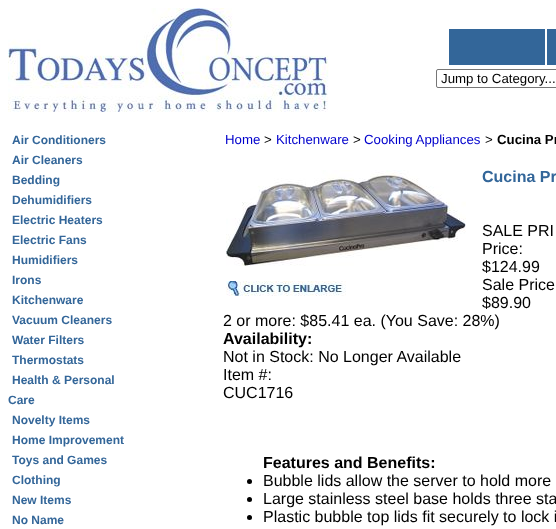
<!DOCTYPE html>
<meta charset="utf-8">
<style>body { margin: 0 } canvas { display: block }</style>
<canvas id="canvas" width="556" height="529"></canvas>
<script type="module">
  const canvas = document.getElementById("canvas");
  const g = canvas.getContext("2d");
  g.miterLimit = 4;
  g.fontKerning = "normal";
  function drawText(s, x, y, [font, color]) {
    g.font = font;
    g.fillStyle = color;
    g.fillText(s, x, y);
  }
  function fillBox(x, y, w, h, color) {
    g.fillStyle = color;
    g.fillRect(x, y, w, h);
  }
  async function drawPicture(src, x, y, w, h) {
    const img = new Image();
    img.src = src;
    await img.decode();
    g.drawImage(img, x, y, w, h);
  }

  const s1 = ["13.25px Liberation Sans", "#000000"];
  const s2 = ["bold 12px Liberation Sans", "#336699"];
  const s3 = ["13.25px Liberation Sans", "#0000CC"];
  const s4 = ["bold 13.25px Liberation Sans", "#000000"];
  const s5 = ["bold 16px Liberation Sans", "#336699"];
  const s6 = ["16px Liberation Sans", "#000000"];
  const s7 = ["bold 16px Liberation Sans", "#000000"];

  fillBox(0, 0, 556, 529, "#FFFFFF");
  await drawPicture("pic1.png", 8, 8, 321, 104);
  fillBox(449, 29, 96, 36, "#336699");
  fillBox(547, 29, 9, 36, "#336699");
  g.beginPath();
  g.roundRect(436.5, 69.5, 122, 18, 1.5);
  g.strokeStyle = "#767676";
  g.stroke();
  drawText("Jump to Category...", 441, 83, s1);
  drawText("Air Conditioners", 12, 144, s2);
  drawText("Air Cleaners", 12, 164, s2);
  drawText("Bedding", 12, 184, s2);
  drawText("Dehumidifiers", 12, 204, s2);
  drawText("Electric Heaters", 12, 224, s2);
  drawText("Electric Fans", 12, 244, s2);
  drawText("Humidifiers", 12, 264, s2);
  drawText("Irons", 12, 284, s2);
  drawText("Kitchenware", 12, 304, s2);
  drawText("Vacuum Cleaners", 12, 324, s2);
  drawText("Water Filters", 12, 344, s2);
  drawText("Thermostats", 12, 364, s2);
  drawText("Health & Personal", 12, 384, s2);
  drawText("Care", 8, 404, s2);
  drawText("Novelty Items", 12, 424, s2);
  drawText("Home Improvement", 12, 444, s2);
  drawText("Toys and Games", 12, 464, s2);
  drawText("Clothing", 12, 484, s2);
  drawText("New Items", 12, 504, s2);
  drawText("No Name", 12, 524, s2);
  drawText("Home", 225, 144, s3);
  drawText(">", 264, 144, s1);
  drawText("Kitchenware", 276, 144, s3);
  drawText(">", 353, 144, s1);
  drawText("Cooking Appliances", 364, 144, s3);
  drawText(">", 485, 144, s1);
  drawText("Cucina Pr", 497, 144, s4);
  await drawPicture("pic2.png", 226, 170, 240, 96);
  await drawPicture("pic3.png", 226, 281, 120, 15);
  drawText("Cucina Pr", 482, 182, s5);
  drawText("SALE PRI", 482, 236, s6);
  drawText("Price:", 482, 254, s6);
  drawText("$124.99", 482, 272, s6);
  drawText("Sale Price", 482, 290, s6);
  drawText("$89.90", 482, 308, s6);
  drawText("2 or more: $85.41 ea. (You Save: 28%)", 223, 326, s6);
  drawText("Availability:", 223, 344, s7);
  drawText("Not in Stock: No Longer Available", 223, 362, s6);
  drawText("Item #:", 223, 380, s6);
  drawText("CUC1716", 223, 398, s6);
  drawText("Features and Benefits:", 263, 468, s7);
  g.beginPath();
  g.arc(249.5, 481.5, 2.5, 0, Math.PI * 2);
  g.fill();
  drawText("Bubble lids allow the server to hold more", 263, 486, s6);
  g.beginPath();
  g.arc(249.5, 499.5, 2.5, 0, Math.PI * 2);
  g.fill();
  drawText("Large stainless steel base holds three sta", 263, 504, s6);
  g.beginPath();
  g.arc(249.5, 517.5, 2.5, 0, Math.PI * 2);
  g.fill();
  drawText("Plastic bubble top lids fit securely to lock i", 263, 522, s6);
</script>
